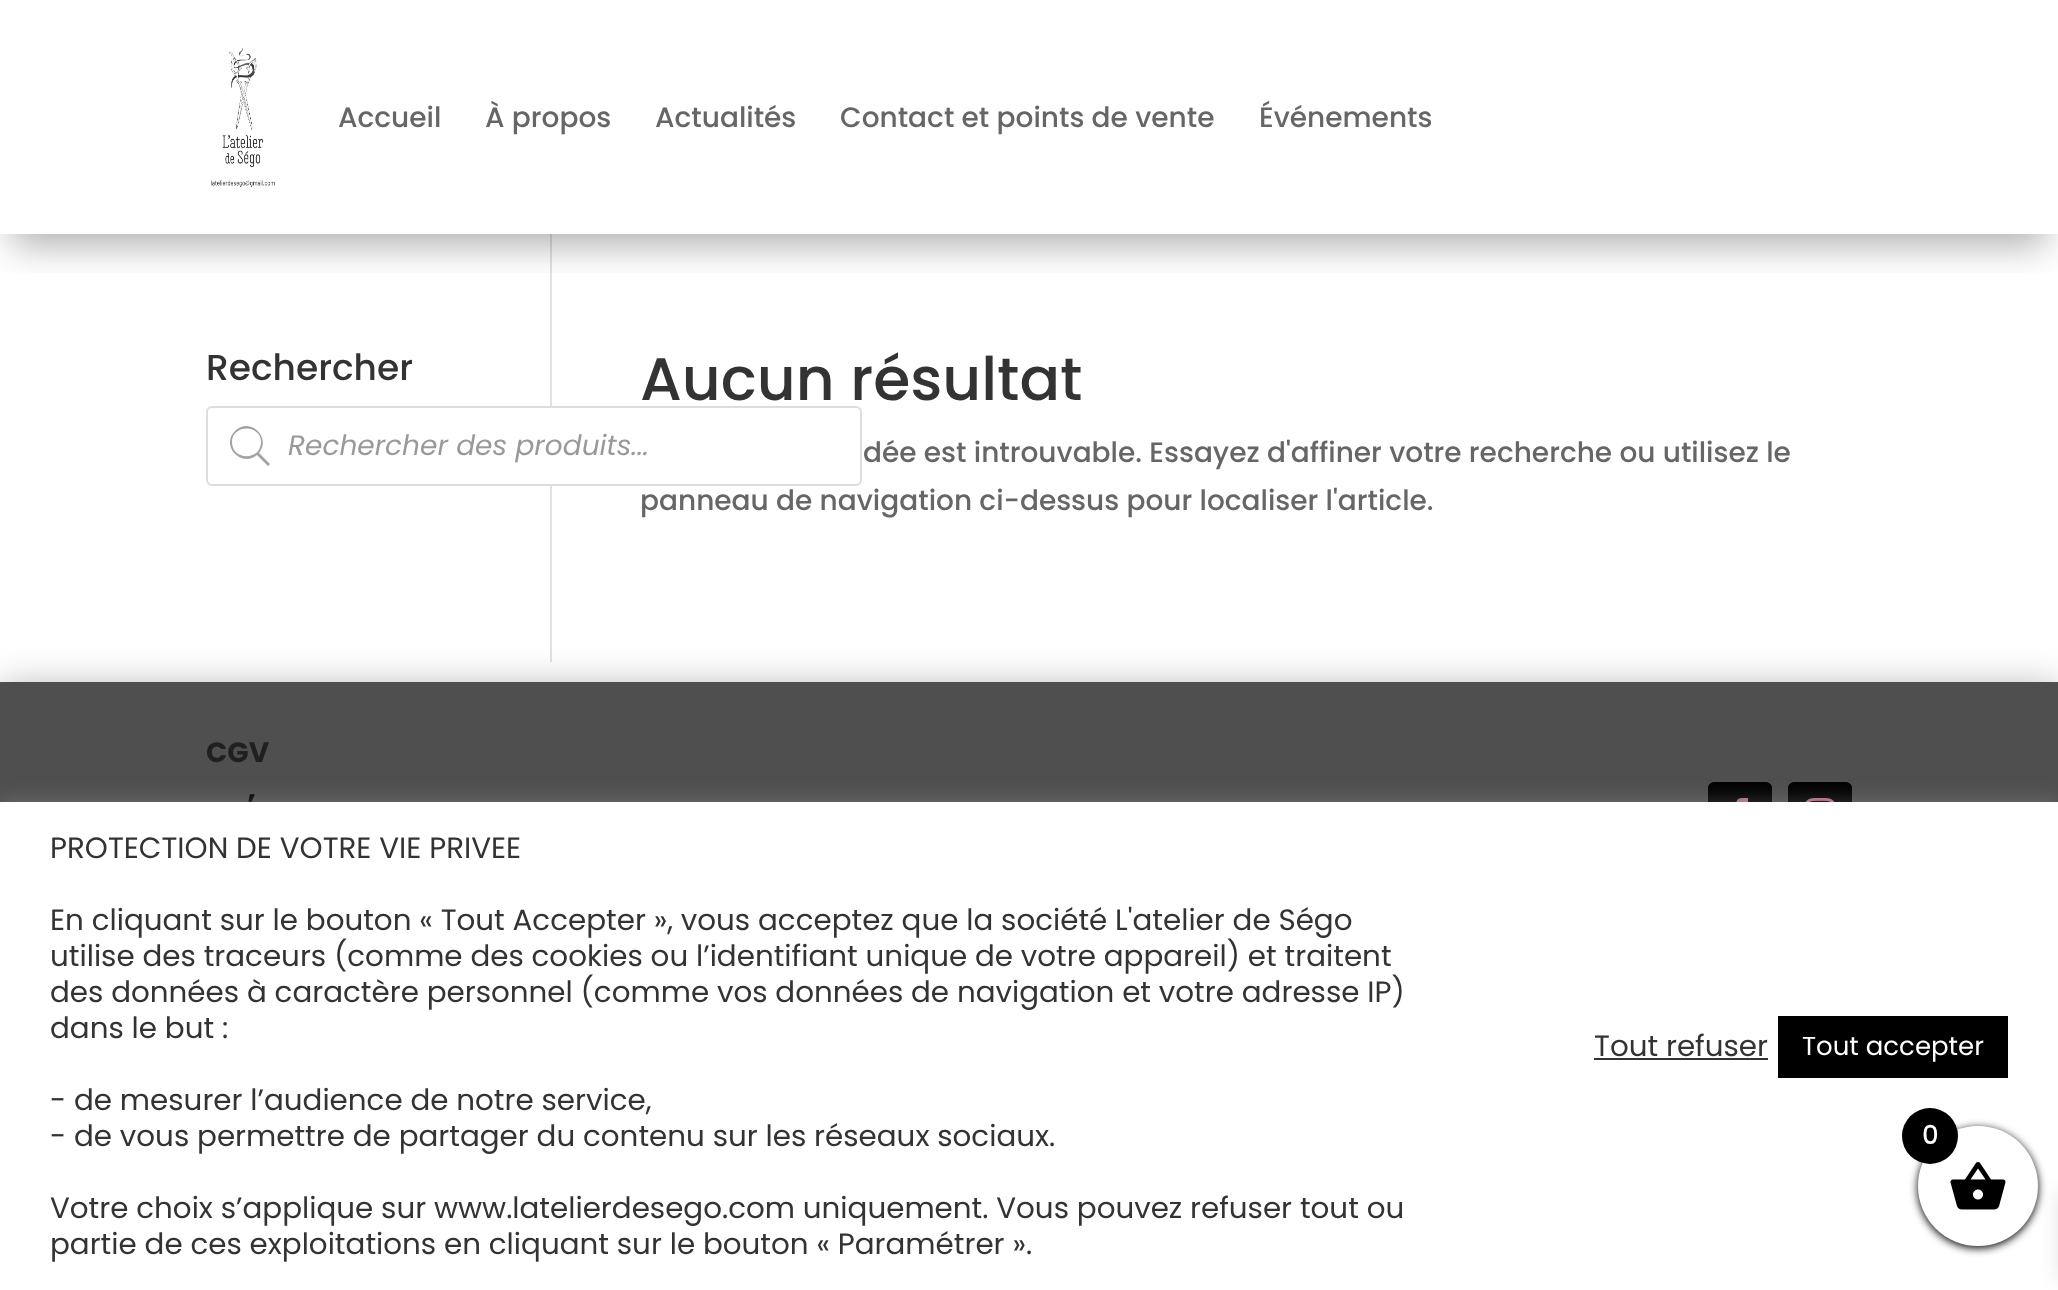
<!DOCTYPE html>
<meta charset="utf-8">
<style>body { margin: 0 } canvas { display: block }</style>
<canvas id="canvas" width="2058" height="1290"></canvas>
<script type="module">
  const canvas = document.getElementById("canvas");
  const g = canvas.getContext("2d");
  g.miterLimit = 4;
  g.fontKerning = "normal";
  function drawText(s, x, y, [font, color]) {
    g.font = font;
    g.fillStyle = color;
    g.fillText(s, x, y);
  }
  function fillBox(x, y, w, h, color) {
    g.fillStyle = color;
    g.fillRect(x, y, w, h);
  }
  function fillRounded(x, y, w, h, r, color) {
    g.fillStyle = color;
    g.beginPath();
    g.roundRect(x, y, w, h, r);
    g.fill();
  }
  async function drawPicture(src, x, y, w, h) {
    const img = new Image();
    img.src = src;
    await img.decode();
    g.drawImage(img, x, y, w, h);
  }

  const s1 = ["500 28px Poppins", "#666666"];
  const s2 = ["500 36px Poppins", "#333333"];
  const s3 = ["italic 28px Poppins", "#999999"];
  const s4 = ["500 60px Poppins", "#333333"];
  const s5 = ["bold 28px Poppins", "#202020"];
  const s6 = ["bold 28px Poppins", "#000000"];
  const s7 = ["29.35px Poppins", "#333333"];
  const s8 = ["26px Poppins", "#FFFFFF"];
  const s9 = ["500 26px Poppins", "#FFFFFF"];

  fillBox(0, 0, 2058, 1290, "#FFFFFF");
  fillBox(550, 234, 2, 428, "#E2E2E2");
  g.save();
  g.beginPath();
  g.rect(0, 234, 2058, 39);
  g.clip();
  g.fillStyle = "rgba(0, 0, 0, 0.3)";
  g.filter = "blur(18px)";
  g.beginPath();
  g.rect(12, 36, 2034, 210);
  g.fill();
  g.filter = "none";
  g.restore();
  await drawPicture("pic1.png", 211, 48, 64, 139);
  drawText("Accueil", 338, 127, s1);
  drawText("À propos", 485, 127, s1);
  drawText("Actualités", 655, 127, s1);
  drawText("Contact et points de vente", 840, 127, s1);
  drawText("Événements", 1259, 127, s1);
  drawText("Rechercher", 206, 380, s2);
  g.fillStyle = "#FFFFFF";
  g.beginPath();
  g.roundRect(207, 407, 654, 78, 5);
  g.fill();
  g.strokeStyle = "#DDDDDD";
  g.lineWidth = 2;
  g.stroke();
  g.fillStyle = "#A2A2A2";
  g.beginPath();
  g.moveTo(270, 464);
  g.lineTo(259, 453);
  g.bezierCurveTo(272, 438, 250, 416, 235, 431);
  g.bezierCurveTo(220, 446, 242, 468, 257, 455);
  g.lineTo(268, 466);
  g.closePath();
  g.moveTo(232, 442);
  g.bezierCurveTo(232, 424, 261, 424, 261, 442);
  g.bezierCurveTo(261, 461, 232, 461, 232, 442);
  g.closePath();
  g.fill();
  drawText("Rechercher des produits...", 288, 455, s3);
  drawText("Aucun résultat", 640, 400, s4);
  drawText("dée est introuvable. Essayez d'affiner votre recherche ou utilisez le", 863, 462, s1);
  drawText("panneau de navigation ci-dessus pour localiser l'article.", 640, 510, s1);
  g.fillStyle = "rgba(0, 0, 0, 0.3)";
  g.filter = "blur(18px)";
  g.beginPath();
  g.rect(0, 686, 2058, 220);
  g.fill();
  g.filter = "none";
  fillBox(0, 682, 2058, 120, "#4F4F4F");
  drawText("CGV", 206, 762, s5);
  drawText("’", 247, 814, s6);
  fillRounded(1708, 782, 64, 64, 6, "#000000");
  await drawPicture("pic2.png", 1736, 798, 13, 4);
  fillRounded(1788, 782, 64, 64, 6, "#000000");
  await drawPicture("pic3.png", 1805, 798, 30, 4);
  g.fillStyle = "rgba(172, 171, 171, 0.3)";
  g.filter = "blur(10px)";
  g.beginPath();
  g.rect(0, 800, 2058, 488);
  g.fill();
  g.filter = "none";
  fillBox(0, 802, 2058, 488, "#FFFFFF");
  drawText("PROTECTION DE VOTRE VIE PRIVEE", 50, 858, s7);
  drawText("En cliquant sur le bouton « Tout Accepter », vous acceptez que la société L'atelier de Ségo", 50, 930, s7);
  drawText("utilise des traceurs (comme des cookies ou l’identifiant unique de votre appareil) et traitent", 50, 966, s7);
  drawText("des données à caractère personnel (comme vos données de navigation et votre adresse IP)", 50, 1002, s7);
  drawText("dans le but :", 50, 1038, s7);
  drawText("- de mesurer l’audience de notre service,", 50, 1110, s7);
  drawText("- de vous permettre de partager du contenu sur les réseaux sociaux.", 50, 1146, s7);
  drawText("Votre choix s’applique sur www.latelierdesego.com uniquement. Vous pouvez refuser tout ou", 50, 1218, s7);
  drawText("partie de ces exploitations en cliquant sur le bouton « Paramétrer ».", 50, 1254, s7);
  drawText("Tout refuser", 1594, 1056, s7);
  fillBox(1594, 1058, 174, 2, "#333333");
  fillBox(1778, 1016, 230, 62, "#000000");
  drawText("Tout accepter", 1802, 1055, s8);
  g.fillStyle = "#000000";
  g.filter = "blur(4px)";
  g.beginPath();
  g.roundRect(1918, 1128, 120, 120, 60);
  g.fill();
  g.filter = "none";
  g.fillStyle = "rgba(0, 0, 0, 0.1)";
  g.filter = "blur(10px)";
  g.beginPath();
  g.rect(2058, 1192, 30, 88);
  g.fill();
  g.filter = "none";
  g.fillStyle = "#FFFFFF";
  g.beginPath();
  g.arc(1978, 1186, 60, 0, Math.PI * 2);
  g.fill();
  await drawPicture("pic4.png", 1950, 1162, 56, 48);
  g.fillStyle = "#000000";
  g.beginPath();
  g.arc(1930, 1136, 28, 0, Math.PI * 2);
  g.fill();
  drawText("0", 1922, 1144, s9);
</script>
